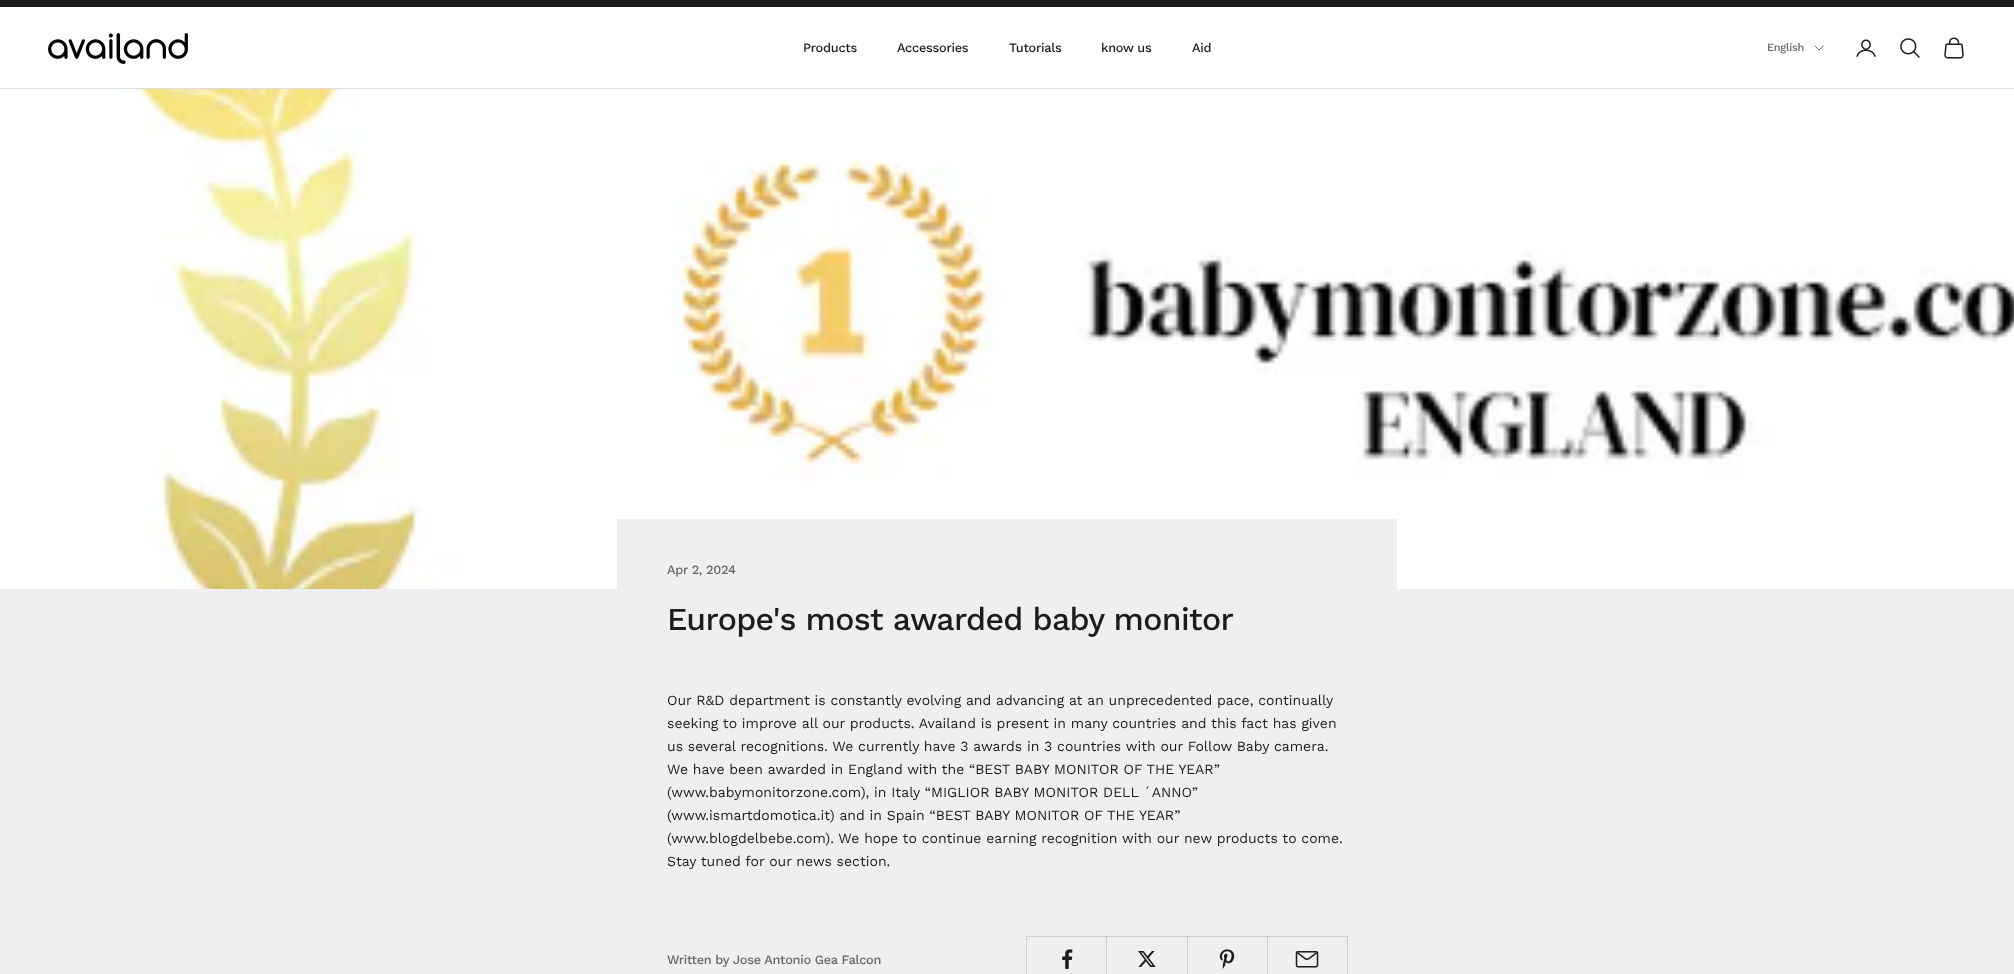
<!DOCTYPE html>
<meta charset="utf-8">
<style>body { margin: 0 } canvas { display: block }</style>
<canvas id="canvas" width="2014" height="974"></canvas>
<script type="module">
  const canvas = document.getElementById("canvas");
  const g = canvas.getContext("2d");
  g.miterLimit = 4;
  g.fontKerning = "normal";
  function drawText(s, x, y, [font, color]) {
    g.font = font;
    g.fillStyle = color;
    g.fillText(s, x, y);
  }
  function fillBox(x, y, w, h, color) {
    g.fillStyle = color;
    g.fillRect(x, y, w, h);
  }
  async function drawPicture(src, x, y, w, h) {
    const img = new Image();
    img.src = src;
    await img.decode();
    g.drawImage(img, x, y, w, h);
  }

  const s1 = ["500 12.75px Work Sans", "#1C1C1C"];
  const s2 = ["500 11px Work Sans", "#666666"];
  const s3 = ["500 12.75px Work Sans", "#666666"];
  const s4 = ["500 32px Work Sans", "#1C1C1C"];
  const s5 = ["14px Work Sans", "#1C1C1C"];

  fillBox(0, 0, 2014, 974, "#EFEFEF");
  fillBox(0, 0, 2014, 7, "#1C1C1C");
  fillBox(0, 7, 2014, 81, "#FFFFFF");
  fillBox(0, 88, 2014, 1, "#DDDDDD");
  await drawPicture("pic1.png", 48, 33, 140, 31);
  g.letterSpacing = "-0.25px";
  drawText("Products", 803, 52, s1);
  drawText("Accessories", 897, 52, s1);
  drawText("Tutorials", 1009, 52, s1);
  drawText("know us", 1101, 52, s1);
  drawText("Aid", 1192, 52, s1);
  drawText("English", 1767, 51, s2);
  g.beginPath();
  g.moveTo(1815, 46);
  g.lineTo(1819, 50);
  g.lineTo(1823, 46);
  g.strokeStyle = "#6B6B6B";
  g.lineCap = "square";
  g.stroke();
  await drawPicture("pic2.png", 1856, 39, 20, 18);
  await drawPicture("pic3.png", 1900, 38, 20, 20);
  await drawPicture("pic4.png", 1944, 37, 20, 22);
  await drawPicture("pic5.png", 0, 89, 2014, 500);
  fillBox(617, 519, 780, 70, "#EFEFEF");
  drawText("Apr 2, 2024", 667, 574, s3);
  g.letterSpacing = "-0.65px";
  drawText("Europe's most awarded baby monitor", 667, 630, s4);
  g.letterSpacing = "0px";
  drawText("Our R&D department is constantly evolving and advancing at an unprecedented pace, continually", 667, 705, s5);
  drawText("seeking to improve all our products. Availand is present in many countries and this fact has given", 667, 728, s5);
  drawText("us several recognitions. We currently have 3 awards in 3 countries with our Follow Baby camera.", 667, 751, s5);
  drawText("We have been awarded in England with the “BEST BABY MONITOR OF THE YEAR”", 667, 774, s5);
  drawText("(www.babymonitorzone.com), in Italy “MIGLIOR BABY MONITOR DELL ´ANNO”", 667, 797, s5);
  drawText("(www.ismartdomotica.it) and in Spain “BEST BABY MONITOR OF THE YEAR”", 667, 820, s5);
  drawText("(www.blogdelbebe.com). We hope to continue earning recognition with our new products to come.", 667, 843, s5);
  drawText("Stay tuned for our news section.", 667, 866, s5);
  g.letterSpacing = "-0.25px";
  drawText("Written by Jose Antonio Gea Falcon", 667, 964, s3);
  g.strokeStyle = "#CFCFCF";
  g.strokeRect(1026.5, 936.5, 80, 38);
  await drawPicture("pic6.png", 1062, 949, 11, 20);
  g.strokeRect(1106.5, 936.5, 81, 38);
  await drawPicture("pic7.png", 1138, 951, 18, 16);
  g.strokeRect(1187.5, 936.5, 80, 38);
  await drawPicture("pic8.png", 1219, 949, 16, 20);
  g.strokeRect(1267.5, 936.5, 80, 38);
  await drawPicture("pic9.png", 1295, 951, 24, 17);
</script>
